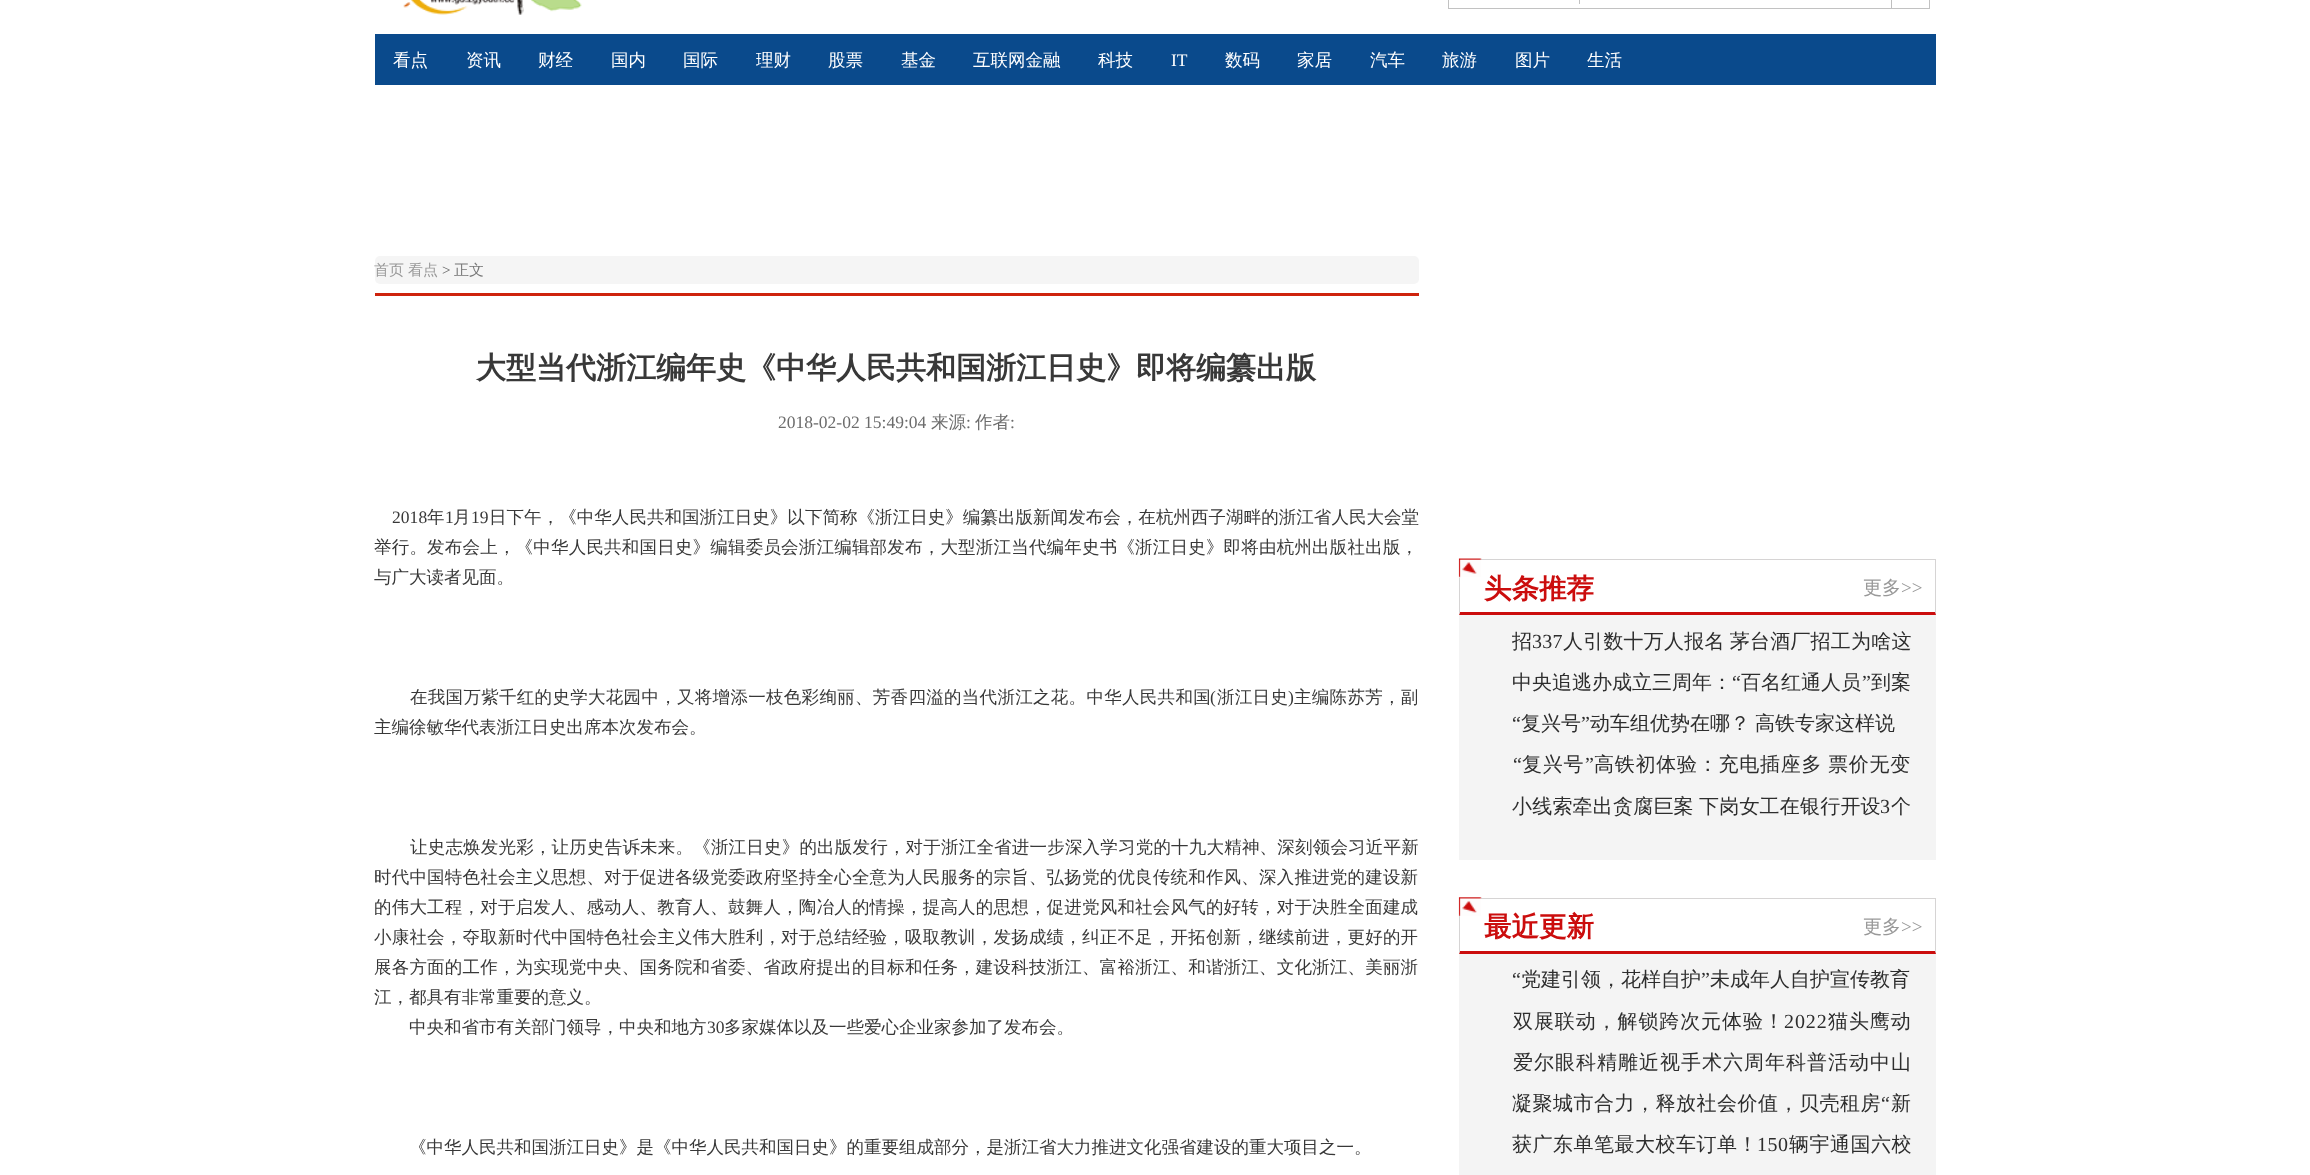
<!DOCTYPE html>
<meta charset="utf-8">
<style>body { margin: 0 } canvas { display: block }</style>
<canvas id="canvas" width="2310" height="1175"></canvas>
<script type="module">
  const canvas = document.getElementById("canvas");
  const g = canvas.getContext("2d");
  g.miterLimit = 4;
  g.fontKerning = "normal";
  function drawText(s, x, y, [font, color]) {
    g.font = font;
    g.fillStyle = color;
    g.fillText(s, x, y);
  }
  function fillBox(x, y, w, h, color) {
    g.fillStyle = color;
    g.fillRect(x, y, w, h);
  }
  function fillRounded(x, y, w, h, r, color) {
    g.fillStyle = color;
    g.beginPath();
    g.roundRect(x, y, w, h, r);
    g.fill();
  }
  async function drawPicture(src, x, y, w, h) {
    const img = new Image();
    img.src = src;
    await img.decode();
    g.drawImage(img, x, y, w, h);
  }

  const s1 = ["500 17.5px WenQuanYi Zen Hei", "#FFFFFF"];
  const s2 = ["17.5px Liberation Serif", "#FFFFFF"];
  const s3 = ["500 15px WenQuanYi Zen Hei", "#999999"];
  const s4 = ["15px Liberation Serif", "#666666"];
  const s5 = ["500 15px WenQuanYi Zen Hei", "#777777"];
  const s6 = ["bold 30px WenQuanYi Zen Hei", "#383838"];
  const s7 = ["17.5px Liberation Serif", "#6C6C6C"];
  const s8 = ["500 17.5px WenQuanYi Zen Hei", "#6C6C6C"];
  const s9 = ["17.5px Liberation Serif", "#383838"];
  const s10 = ["500 17.5px WenQuanYi Zen Hei", "#383838"];
  const s11 = ["bold 27.5px WenQuanYi Zen Hei", "#CB0D0D"];
  const s12 = ["500 19px WenQuanYi Zen Hei", "#999999"];
  const s13 = ["19px Liberation Serif", "#999999"];
  const s14 = ["500 20px WenQuanYi Zen Hei", "#2D2D2D"];
  const s15 = ["20px Liberation Serif", "#2D2D2D"];

  fillBox(0, 0, 2310, 1175, "#FFFFFF");
  await drawPicture("pic1.png", 403, 0, 179, 15);
  fillBox(1929, 0, 1, 9, "#C2C2C2");
  fillBox(1448, 8, 482, 1, "#C2C2C2");
  fillBox(1579, 0, 1, 4, "#C2C2C2");
  fillBox(1891, 0, 1, 8, "#BFBFBF");
  fillBox(1448, 0, 1, 9, "#C2C2C2");
  fillBox(375, 34, 1561, 51, "#0A4A8C");
  drawText("看点", 393, 66, s1);
  drawText("资讯", 466, 66, s1);
  drawText("财经", 538, 66, s1);
  drawText("国内", 611, 66, s1);
  drawText("国际", 683, 66, s1);
  drawText("理财", 756, 66, s1);
  drawText("股票", 828, 66, s1);
  drawText("基金", 901, 66, s1);
  drawText("互联网金融", 973, 66, s1);
  drawText("科技", 1098, 66, s1);
  drawText("IT", 1171, 66, s2);
  drawText("数码", 1225, 66, s1);
  drawText("家居", 1297, 66, s1);
  drawText("汽车", 1370, 66, s1);
  drawText("旅游", 1442, 66, s1);
  drawText("图片", 1515, 66, s1);
  drawText("生活", 1587, 66, s1);
  fillRounded(375, 256, 1044, 28, 5, "#F5F5F5");
  drawText("首页", 374, 275, s3);
  drawText("看点", 408, 275, s3);
  drawText(">", 442, 275, s4);
  drawText("正文", 454, 275, s5);
  fillBox(375, 293, 1044, 3, "#CE230D");
  drawText("大型当代浙江编年史《中华人民共和国浙江日史》即将编纂出版", 476, 378, s6);
  drawText("2018-02-02 15:49:04", 778, 428, s7);
  drawText("来源", 931, 428, s8);
  drawText(":", 966, 428, s7);
  drawText("作者", 975, 428, s8);
  drawText(":", 1010, 428, s7);
  g.letterSpacing = "0.05px";
  drawText("2018", 392, 523, s9);
  drawText("年", 427, 523, s10);
  drawText("1", 445, 523, s9);
  drawText("月", 453, 523, s10);
  drawText("19", 471, 523, s9);
  drawText("日下午，《中华人民共和国浙江日史》以下简称《浙江日史》编纂出版新闻发布会，在杭州西子湖畔的浙江省人民大会堂", 489, 523, s10);
  g.letterSpacing = "0.2px";
  drawText("举行。发布会上，《中华人民共和国日史》编辑委员会浙江编辑部发布，大型浙江当代编年史书《浙江日史》即将由杭州出版社出版，", 374, 553, s10);
  g.letterSpacing = "0px";
  drawText("与广大读者见面。", 374, 583, s10);
  g.letterSpacing = "0.3px";
  drawText("在我国万紫千红的史学大花园中，又将增添一枝色彩绚丽、芳香四溢的当代浙江之花。中华人民共和国", 410, 703, s10);
  drawText("(", 1210, 703, s9);
  drawText("浙江日史", 1217, 703, s10);
  drawText(")", 1288, 703, s9);
  drawText("主编陈苏芳，副", 1294, 703, s10);
  g.letterSpacing = "0px";
  drawText("主编徐敏华代表浙江日史出席本次发布会。", 374, 733, s10);
  g.letterSpacing = "0.2px";
  drawText("让史志焕发光彩，让历史告诉未来。《浙江日史》的出版发行，对于浙江全省进一步深入学习党的十九大精神、深刻领会习近平新", 410, 853, s10);
  drawText("时代中国特色社会主义思想、对于促进各级党委政府坚持全心全意为人民服务的宗旨、弘扬党的优良传统和作风、深入推进党的建设新", 374, 883, s10);
  drawText("的伟大工程，对于启发人、感动人、教育人、鼓舞人，陶冶人的情操，提高人的思想，促进党风和社会风气的好转，对于决胜全面建成", 374, 913, s10);
  drawText("小康社会，夺取新时代中国特色社会主义伟大胜利，对于总结经验，吸取教训，发扬成绩，纠正不足，开拓创新，继续前进，更好的开", 374, 943, s10);
  drawText("展各方面的工作，为实现党中央、国务院和省委、省政府提出的目标和任务，建设科技浙江、富裕浙江、和谐浙江、文化浙江、美丽浙", 374, 973, s10);
  g.letterSpacing = "0px";
  drawText("江，都具有非常重要的意义。", 374, 1003, s10);
  drawText("中央和省市有关部门领导，中央和地方", 409, 1033, s10);
  drawText("30", 707, 1033, s9);
  drawText("多家媒体以及一些爱心企业家参加了发布会。", 724, 1033, s10);
  drawText("《中华人民共和国浙江日史》是《中华人民共和国日史》的重要组成部分，是浙江省大力推进文化强省建设的重大项目之一。", 409, 1153, s10);
  fillBox(1459, 612, 477, 248, "#F4F4F4");
  fillBox(1481, 559, 455, 1, "#D6D4D4");
  g.beginPath();
  g.moveTo(1936, 559);
  g.lineTo(1936, 615);
  g.lineTo(1935, 612);
  g.lineTo(1935, 560);
  g.closePath();
  g.fill();
  g.fillStyle = "#CB0D0D";
  g.beginPath();
  g.moveTo(1936, 615);
  g.lineTo(1459, 615);
  g.lineTo(1460, 612);
  g.lineTo(1935, 612);
  g.closePath();
  g.fill();
  g.fillStyle = "#D6D4D4";
  g.beginPath();
  g.moveTo(1459, 615);
  g.lineTo(1459, 559);
  g.lineTo(1460, 560);
  g.lineTo(1460, 612);
  g.closePath();
  g.fill();
  fillBox(1459, 577, 1, 1, "#FFFFFF");
  await drawPicture("pic2.png", 1458, 558, 24, 20);
  drawText("头条推荐", 1484, 598, s11);
  drawText("更多", 1863, 594, s12);
  drawText(">>", 1901, 594, s13);
  g.letterSpacing = "0.2px";
  drawText("招", 1512, 648, s14);
  drawText("337", 1532, 648, s15);
  g.wordSpacing = "-1px";
  drawText("人引数十万人报名 茅台酒厂招工为啥这", 1563, 648, s14);
  g.letterSpacing = "0px";
  g.wordSpacing = "0px";
  drawText("中央追逃办成立三周年：", 1512, 689, s14);
  drawText("“", 1732, 689, s15);
  drawText("百名红通人员", 1741, 689, s14);
  drawText("”", 1862, 689, s15);
  drawText("到案", 1871, 689, s14);
  drawText("“", 1512, 730, s15);
  drawText("复兴号", 1521, 730, s14);
  drawText("”", 1581, 730, s15);
  g.wordSpacing = "-1px";
  drawText("动车组优势在哪？ 高铁专家这样说", 1590, 730, s14);
  g.letterSpacing = "0.75px";
  g.wordSpacing = "0px";
  drawText("“", 1513, 771, s15);
  drawText("复兴号", 1522, 771, s14);
  drawText("”", 1585, 771, s15);
  g.wordSpacing = "-1px";
  drawText("高铁初体验：充电插座多 票价无变", 1594, 771, s14);
  g.letterSpacing = "0.2px";
  drawText("小线索牵出贪腐巨案 下岗女工在银行开设", 1512, 813, s14);
  g.wordSpacing = "0px";
  drawText("3", 1880, 813, s15);
  drawText("个", 1891, 813, s14);
  fillBox(1459, 951, 477, 224, "#F4F4F4");
  fillBox(1481, 898, 455, 1, "#D6D4D4");
  g.beginPath();
  g.moveTo(1936, 898);
  g.lineTo(1936, 954);
  g.lineTo(1935, 951);
  g.lineTo(1935, 899);
  g.closePath();
  g.fill();
  g.fillStyle = "#CB0D0D";
  g.beginPath();
  g.moveTo(1936, 954);
  g.lineTo(1459, 954);
  g.lineTo(1460, 951);
  g.lineTo(1935, 951);
  g.closePath();
  g.fill();
  g.fillStyle = "#D6D4D4";
  g.beginPath();
  g.moveTo(1459, 954);
  g.lineTo(1459, 898);
  g.lineTo(1460, 899);
  g.lineTo(1460, 951);
  g.closePath();
  g.fill();
  await drawPicture("pic3.png", 1458, 897, 24, 19);
  g.letterSpacing = "0px";
  drawText("最近更新", 1484, 936, s11);
  drawText("更多", 1863, 933, s12);
  drawText(">>", 1901, 933, s13);
  drawText("“", 1512, 986, s15);
  drawText("党建引领，花样自护", 1521, 986, s14);
  drawText("”", 1701, 986, s15);
  drawText("未成年人自护宣传教育", 1710, 986, s14);
  g.letterSpacing = "0.9px";
  drawText("双展联动，解锁跨次元体验！", 1513, 1028, s14);
  drawText("2022", 1784, 1028, s15);
  drawText("猫头鹰动", 1828, 1028, s14);
  g.letterSpacing = "1px";
  drawText("爱尔眼科精雕近视手术六周年科普活动中山", 1513, 1069, s14);
  g.letterSpacing = "0.5px";
  drawText("凝聚城市合力，释放社会价值，贝壳租房", 1512, 1110, s14);
  drawText("“", 1881, 1110, s15);
  drawText("新", 1891, 1110, s14);
  drawText("获广东单笔最大校车订单！", 1512, 1151, s14);
  drawText("150", 1757, 1151, s15);
  drawText("辆宇通国六校", 1789, 1151, s14);
</script>
